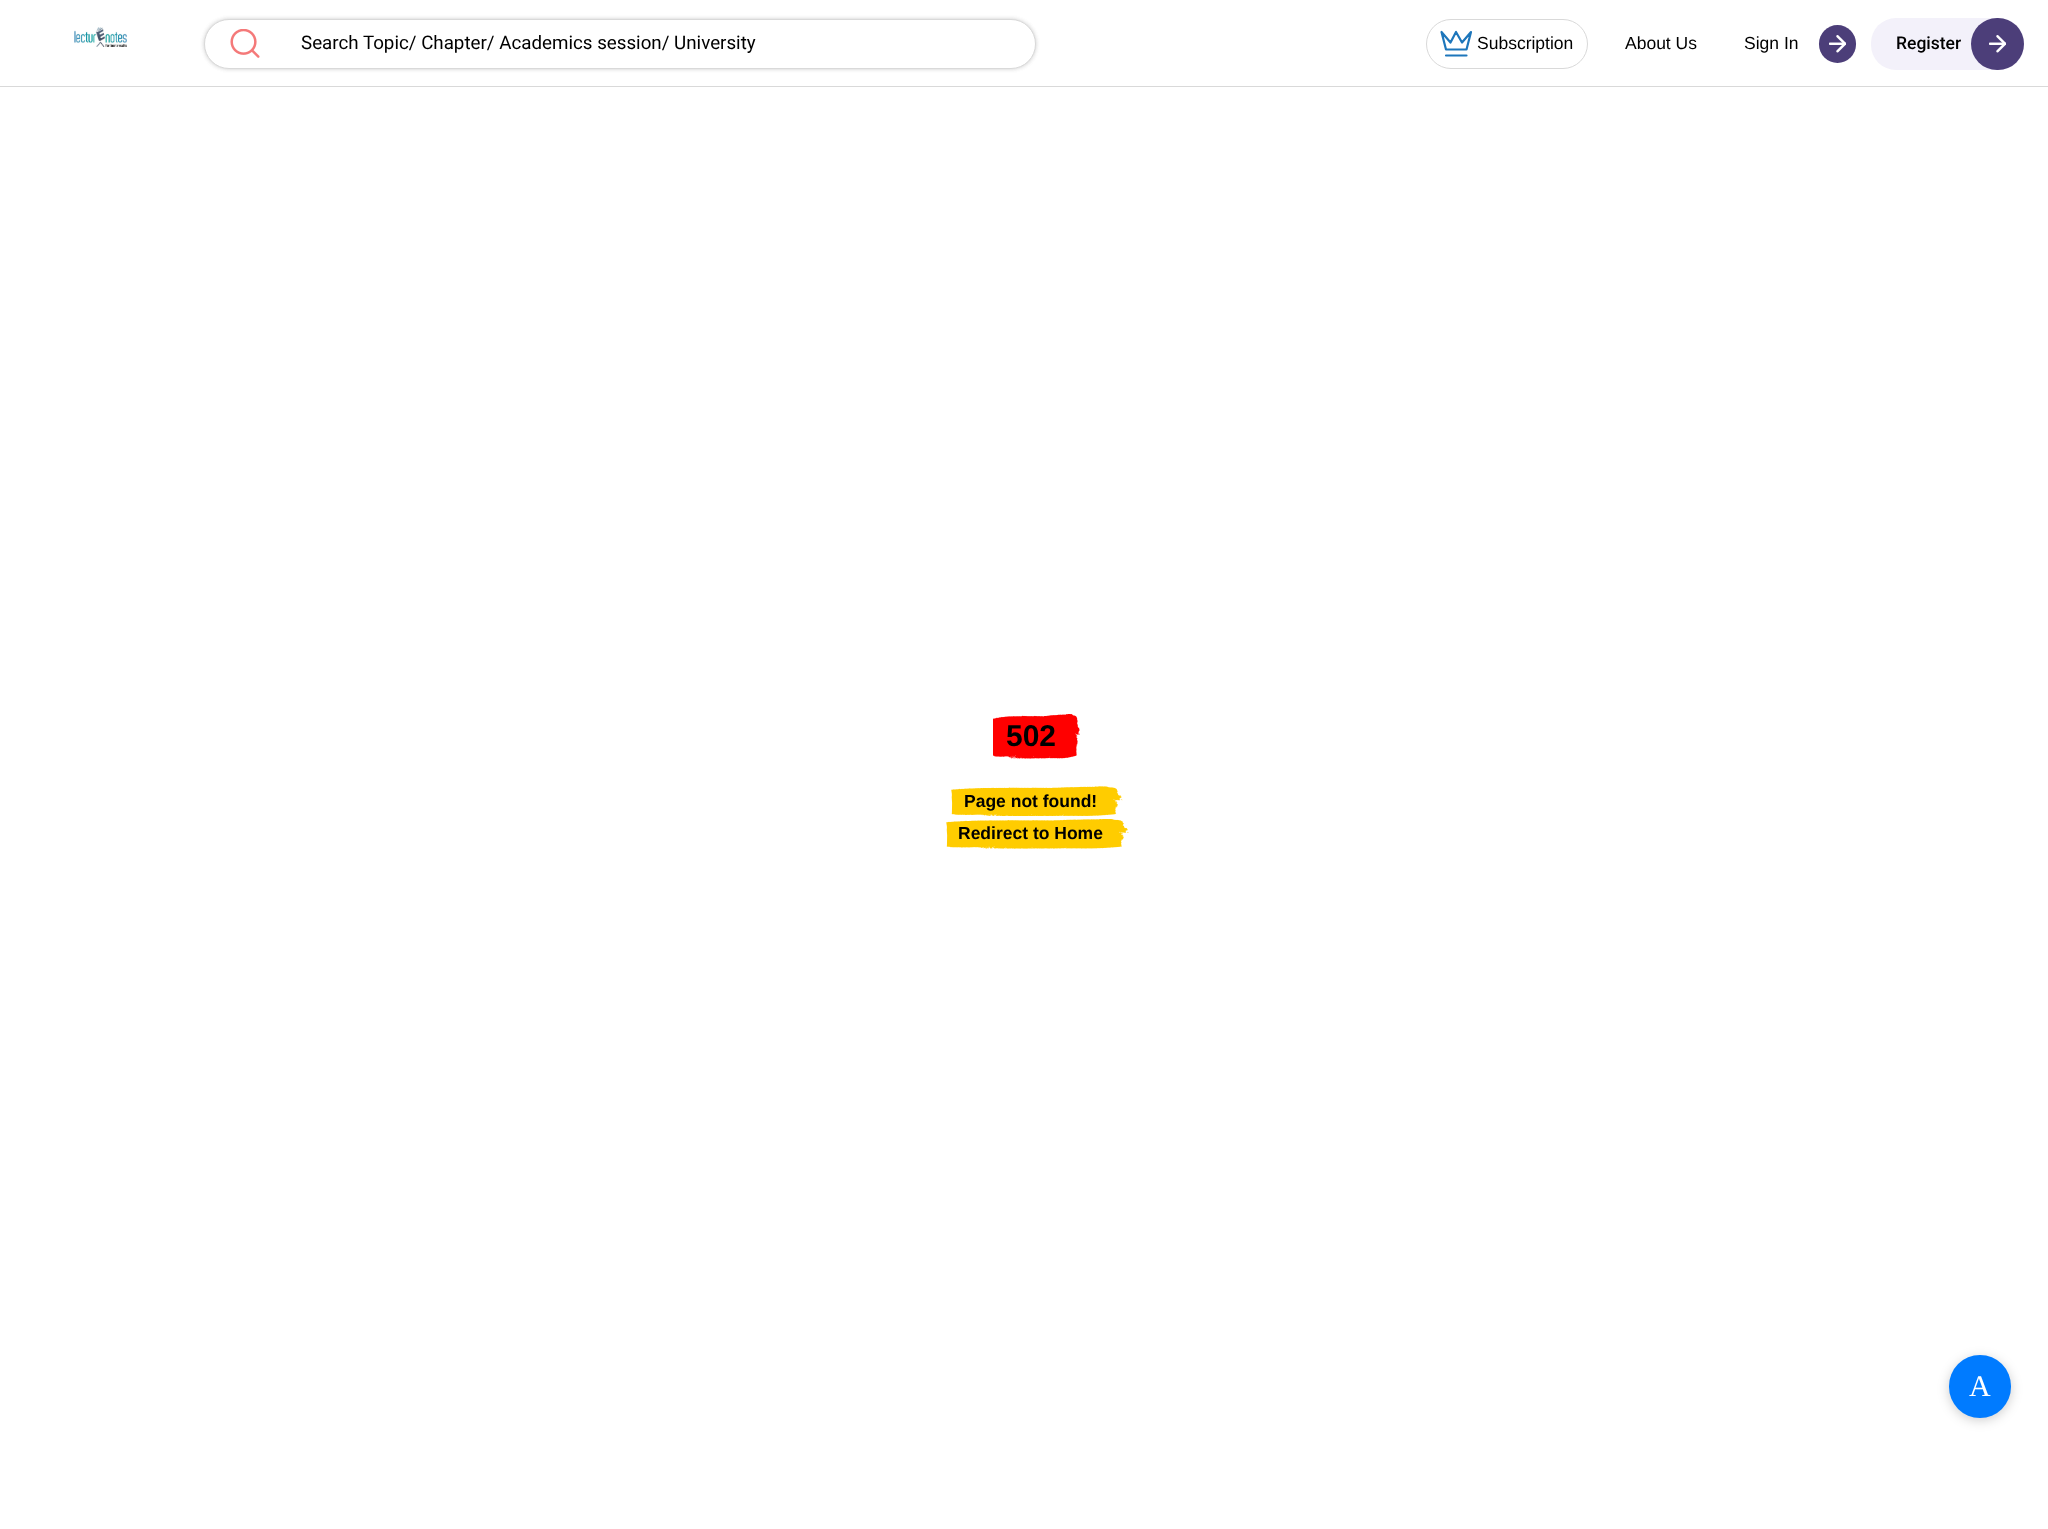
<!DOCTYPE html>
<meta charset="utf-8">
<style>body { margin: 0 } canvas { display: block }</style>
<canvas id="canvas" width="2048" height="1529"></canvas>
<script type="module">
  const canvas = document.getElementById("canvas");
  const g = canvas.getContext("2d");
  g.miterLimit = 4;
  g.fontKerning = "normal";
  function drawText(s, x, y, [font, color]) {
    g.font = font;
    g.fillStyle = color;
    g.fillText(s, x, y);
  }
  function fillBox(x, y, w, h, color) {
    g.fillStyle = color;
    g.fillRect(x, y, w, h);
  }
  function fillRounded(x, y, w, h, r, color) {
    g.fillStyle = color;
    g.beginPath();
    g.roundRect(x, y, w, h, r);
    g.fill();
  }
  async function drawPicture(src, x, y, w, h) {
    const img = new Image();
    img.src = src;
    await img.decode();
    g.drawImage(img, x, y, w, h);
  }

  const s1 = ["18.75px Roboto", "#000000"];
  const s2 = ["17.5px Liberation Sans", "#000000"];
  const s3 = ["500 17.5px Roboto", "#000000"];
  const s4 = ["bold 30px Liberation Sans", "#000000"];
  const s5 = ["bold 17.5px Liberation Sans", "#000000"];
  const s6 = ["30px Liberation Serif", "#FFFFFF"];

  fillBox(0, 0, 2048, 1529, "#FFFFFF");
  fillBox(0, 86, 2048, 1, "#D9D9D9");
  await drawPicture("pic1.png", 74, 27, 53, 20);
  g.fillStyle = "rgba(0, 0, 0, 0.1)";
  g.filter = "blur(2px)";
  g.beginPath();
  g.roundRect(204, 19, 832, 50, 25);
  g.fill();
  g.filter = "none";
  g.filter = "blur(2px)";
  g.beginPath();
  g.roundRect(204, 19, 832, 50, 25);
  g.fill();
  g.filter = "none";
  g.fillStyle = "#FFFFFF";
  g.beginPath();
  g.roundRect(204.5, 19.5, 831, 49, 24.5);
  g.fill();
  g.strokeStyle = "#D9D9D9";
  g.stroke();
  await drawPicture("pic2.png", 230, 29, 30, 29);
  drawText("Search Topic/ Chapter/ Academics session/ University", 301, 49, s1);
  g.beginPath();
  g.roundRect(1426.5, 19.5, 161, 49, 24.5);
  g.stroke();
  g.beginPath();
  g.moveTo(1446, 55.5);
  g.lineTo(1466.5, 55.5);
  g.moveTo(1441.5, 32);
  g.lineTo(1446, 49.5);
  g.lineTo(1466.5, 49.5);
  g.lineTo(1471, 32);
  g.lineTo(1462, 42.5);
  g.lineTo(1456, 32);
  g.lineTo(1450.5, 42.5);
  g.closePath();
  g.strokeStyle = "#1D76BB";
  g.lineWidth = 2.2;
  g.lineCap = "round";
  g.lineJoin = "round";
  g.stroke();
  drawText("Subscription", 1477, 49, s2);
  drawText("About Us", 1625, 49, s2);
  drawText("Sign In", 1744, 49, s2);
  fillRounded(1819, 25, 37, 38, 18.5, "#4C3E79");
  await drawPicture("pic3.png", 1829, 35, 17, 18);
  fillRounded(1871, 18, 153, 52, 25, "#F3F1FA");
  drawText("Register", 1896, 49, s3);
  fillRounded(1971, 18, 53, 52, 26, "#4C3E79");
  await drawPicture("pic3.png", 1989, 35, 17, 18);
  await drawPicture("pic4.png", 993, 714, 87, 45);
  drawText("502", 1006, 746, s4);
  await drawPicture("pic5.png", 951, 786, 172, 30);
  drawText("Page not found!", 964, 807, s5);
  await drawPicture("pic6.png", 946, 819, 183, 30);
  drawText("Redirect to Home", 958, 839, s5);
  g.fillStyle = "rgba(0, 0, 0, 0.2)";
  g.filter = "blur(6px)";
  g.beginPath();
  g.roundRect(1949, 1358, 62, 62, 31);
  g.fill();
  g.filter = "none";
  fillRounded(1949, 1355, 62, 63, 31, "#007BFF");
  drawText("A", 1969, 1396, s6);
</script>
